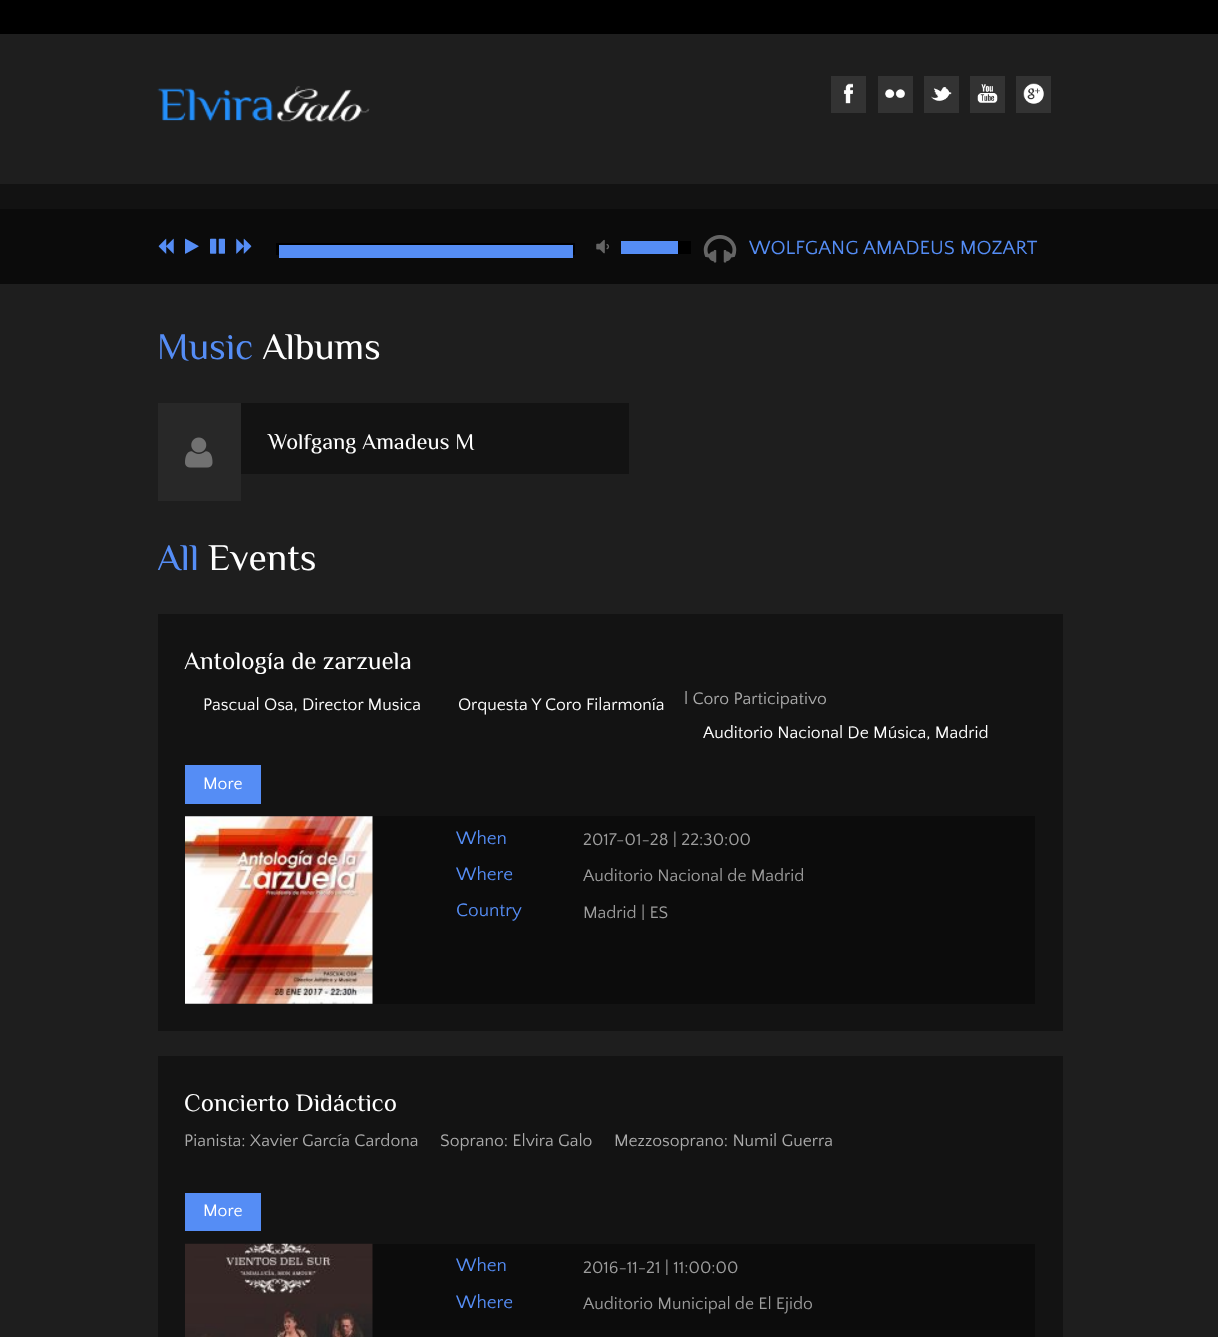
<!DOCTYPE html>
<meta charset="utf-8">
<style>body { margin: 0 } canvas { display: block }</style>
<canvas id="canvas" width="1218" height="1337"></canvas>
<script type="module">
  const canvas = document.getElementById("canvas");
  const g = canvas.getContext("2d");
  g.miterLimit = 4;
  g.fontKerning = "normal";
  function drawText(s, x, y, [font, color]) {
    g.font = font;
    g.fillStyle = color;
    g.fillText(s, x, y);
  }
  function fillBox(x, y, w, h, color) {
    g.fillStyle = color;
    g.fillRect(x, y, w, h);
  }
  async function drawPicture(src, x, y, w, h) {
    const img = new Image();
    img.src = src;
    await img.decode();
    g.drawImage(img, x, y, w, h);
  }

  const s1 = ["20px Quattrocento Sans", "#558DF5"];
  const s2 = ["37.5px Philosopher", "#558DF5"];
  const s3 = ["37.5px Philosopher", "#FFFFFF"];
  const s4 = ["22.5px Philosopher", "#FFFFFF"];
  const s5 = ["25px Philosopher", "#FFFFFF"];
  const s6 = ["17.5px Quattrocento Sans", "#FFFFFF"];
  const s7 = ["17.5px Quattrocento Sans", "#AAAAAA"];
  const s8 = ["19px Quattrocento Sans", "#558DF5"];
  const s9 = ["17.5px Quattrocento Sans", "#9D9D9D"];

  fillBox(0, 0, 1218, 1337, "#1E1E1E");
  fillBox(0, 0, 1218, 34, "#000000");
  await drawPicture("pic1.png", 157, 86, 213, 36);
  fillBox(831, 76, 35, 37, "#333333");
  await drawPicture("pic2.png", 843, 83, 10, 21);
  fillBox(878, 76, 35, 37, "#333333");
  await drawPicture("pic3.png", 885, 89, 20, 9);
  fillBox(924, 76, 35, 37, "#333333");
  await drawPicture("pic4.png", 931, 87, 21, 15);
  fillBox(970, 76, 35, 37, "#333333");
  await drawPicture("pic5.png", 977, 84, 21, 19);
  fillBox(1016, 76, 35, 37, "#333333");
  await drawPicture("pic6.png", 1023, 83, 21, 21);
  fillBox(0, 184, 1218, 25, "#121212");
  fillBox(0, 209, 1218, 75, "#0B0B0B");
  await drawPicture("pic7.png", 158, 238, 16, 16);
  await drawPicture("pic8.png", 185, 238, 14, 16);
  await drawPicture("pic9.png", 210, 238, 15, 16);
  await drawPicture("pic10.png", 236, 238, 16, 16);
  fillBox(276, 243, 299, 12, "#000000");
  fillBox(279, 245, 294, 13, "#558DF5");
  await drawPicture("pic11.png", 596, 239, 14, 15);
  fillBox(678, 241, 13, 13, "#000000");
  fillBox(621, 241, 57, 13, "#558DF5");
  await drawPicture("pic12.png", 703, 235, 34, 28);
  drawText("WOLFGANG AMADEUS MOZART", 749, 254, s1);
  drawText("Music", 157, 359, s2);
  drawText("Albums", 262, 359, s3);
  fillBox(158, 403, 83, 98, "#282828");
  await drawPicture("pic13.png", 185, 437, 28, 31);
  fillBox(241, 403, 388, 71, "#131313");
  drawText("Wolfgang Amadeus M", 268, 449, s4);
  drawText("All", 157, 570, s2);
  drawText("Events", 208, 570, s3);
  fillBox(158, 614, 905, 417, "#131313");
  drawText("Antología de zarzuela", 184, 669, s5);
  drawText("Pascual Osa, Director Musica", 203, 710, s6);
  drawText("Orquesta Y Coro Filarmonía", 458, 710, s6);
  drawText("l Coro Participativo", 684, 704, s7);
  drawText("Auditorio Nacional De Música, Madrid", 703, 738, s6);
  fillBox(185, 765, 76, 39, "#558DF5");
  drawText("More", 203, 789, s6);
  fillBox(185, 816, 850, 188, "#0C0C0C");
  await drawPicture("pic14.png", 185, 816, 188, 188);
  drawText("When", 456, 844, s8);
  drawText("2017-01-28 | 22:30:00", 583, 845, s9);
  drawText("Where", 456, 880, s8);
  drawText("Auditorio Nacional de Madrid", 583, 881, s9);
  drawText("Country", 456, 916, s8);
  drawText("Madrid | ES", 583, 918, s9);
  fillBox(158, 1056, 905, 281, "#131313");
  drawText("Concierto Didáctico", 184, 1111, s5);
  drawText("Pianista: Xavier García Cardona", 184, 1146, s7);
  drawText("Soprano: Elvira Galo", 440, 1146, s7);
  drawText("Mezzosoprano: Numil Guerra", 614, 1146, s7);
  fillBox(185, 1193, 76, 38, "#558DF5");
  drawText("More", 203, 1216, s6);
  fillBox(372, 1244, 663, 93, "#0C0C0C");
  await drawPicture("pic15.png", 185, 1243, 188, 94);
  drawText("When", 456, 1271, s8);
  drawText("2016-11-21 | 11:00:00", 583, 1273, s9);
  drawText("Where", 456, 1308, s8);
  drawText("Auditorio Municipal de El Ejido", 583, 1309, s9);
</script>
